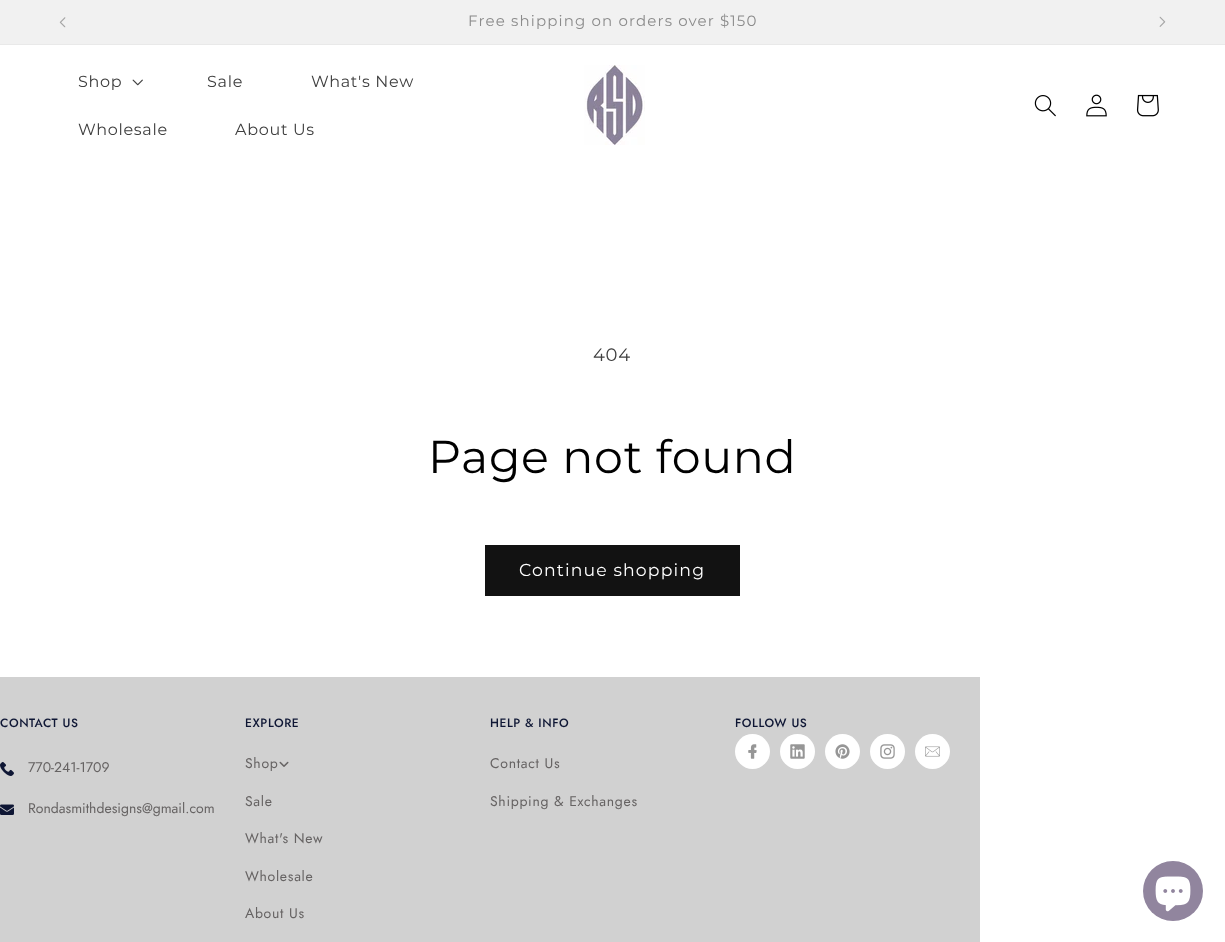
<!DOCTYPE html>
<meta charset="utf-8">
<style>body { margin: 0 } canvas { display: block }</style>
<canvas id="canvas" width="1225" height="942"></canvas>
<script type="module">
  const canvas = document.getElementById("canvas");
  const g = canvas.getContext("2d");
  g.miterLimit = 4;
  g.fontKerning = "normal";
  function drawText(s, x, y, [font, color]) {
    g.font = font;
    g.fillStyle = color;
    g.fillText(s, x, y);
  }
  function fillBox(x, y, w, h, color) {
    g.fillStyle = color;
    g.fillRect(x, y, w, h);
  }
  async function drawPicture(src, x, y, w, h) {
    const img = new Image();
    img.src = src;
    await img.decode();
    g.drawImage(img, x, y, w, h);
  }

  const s1 = ["15px Montserrat", "#8B8B8B"];
  const s2 = ["16px Montserrat", "#404040"];
  const s3 = ["18px Montserrat", "#404040"];
  const s4 = ["46px Montserrat", "#000000"];
  const s5 = ["17.25px Montserrat", "#FFFFFF"];
  const s6 = ["500 12px Jost", "#0E1634"];
  const s7 = ["14px Jost", "#666363"];

  fillBox(0, 0, 1225, 942, "#FFFFFF");
  fillBox(0, 0, 1225, 44, "#F1F1F1");
  fillBox(0, 44, 1225, 1, "#E9E9E9");
  await drawPicture("pic1.png", 59, 17, 7, 11);
  g.letterSpacing = "1.15px";
  drawText("Free shipping on orders over $150", 468, 26, s1);
  await drawPicture("pic2.png", 1159, 16, 7, 11);
  g.letterSpacing = "0.7px";
  drawText("Shop", 78, 87, s2);
  await drawPicture("pic3.png", 132, 79, 11, 7);
  drawText("Sale", 207, 87, s2);
  drawText("What's New", 311, 87, s2);
  drawText("Wholesale", 78, 135, s2);
  drawText("About Us", 235, 135, s2);
  await drawPicture("pic4.png", 584, 65, 61, 80);
  await drawPicture("pic5.png", 1034, 95, 22, 22);
  await drawPicture("pic6.png", 1086, 94, 21, 23);
  await drawPicture("pic7.png", 1136, 94, 23, 23);
  drawText("404", 593, 361, s3);
  drawText("Page not found", 428, 473, s4);
  fillBox(485, 545, 255, 51, "#121212");
  g.letterSpacing = "1.15px";
  drawText("Continue shopping", 519, 576, s5);
  fillBox(0, 677, 980, 265, "#D1D1D1");
  g.letterSpacing = "0.6px";
  drawText("CONTACT US", 0, 727, s6);
  await drawPicture("pic8.png", 0, 762, 14, 14);
  g.letterSpacing = "0px";
  drawText("770-241-1709", 28, 772, s7);
  await drawPicture("pic9.png", 0, 804, 14, 11);
  drawText("Rondasmithdesigns@gmail.com", 28, 813, s7);
  g.letterSpacing = "0.6px";
  drawText("EXPLORE", 245, 727, s6);
  g.letterSpacing = "0.7px";
  drawText("Shop", 245, 768, s7);
  await drawPicture("pic10.png", 279, 761, 10, 6);
  drawText("Sale", 245, 806, s7);
  drawText("What's New", 245, 843, s7);
  drawText("Wholesale", 245, 881, s7);
  drawText("About Us", 245, 918, s7);
  g.letterSpacing = "0.6px";
  drawText("HELP & INFO", 490, 727, s6);
  g.letterSpacing = "0.7px";
  drawText("Contact Us", 490, 768, s7);
  drawText("Shipping & Exchanges", 490, 806, s7);
  g.letterSpacing = "0.6px";
  drawText("FOLLOW US", 735, 727, s6);
  g.fillStyle = "#FFFFFF";
  g.beginPath();
  g.arc(752.5, 751.5, 17.5, 0, Math.PI * 2);
  g.fill();
  await drawPicture("pic11.png", 748, 744, 9, 15);
  g.beginPath();
  g.arc(797.5, 751.5, 17.5, 0, Math.PI * 2);
  g.fill();
  await drawPicture("pic12.png", 790, 744, 15, 15);
  g.beginPath();
  g.arc(842.5, 751.5, 17.5, 0, Math.PI * 2);
  g.fill();
  await drawPicture("pic13.png", 835, 744, 15, 15);
  g.beginPath();
  g.arc(887.5, 751.5, 17.5, 0, Math.PI * 2);
  g.fill();
  await drawPicture("pic14.png", 880, 744, 15, 15);
  g.beginPath();
  g.arc(932.5, 751.5, 17.5, 0, Math.PI * 2);
  g.fill();
  await drawPicture("pic15.png", 925, 746, 15, 11);
  g.fillStyle = "#91859E";
  g.beginPath();
  g.arc(1173, 891, 30, 0, Math.PI * 2);
  g.fill();
  await drawPicture("pic16.png", 1155, 876, 36, 36);
</script>
